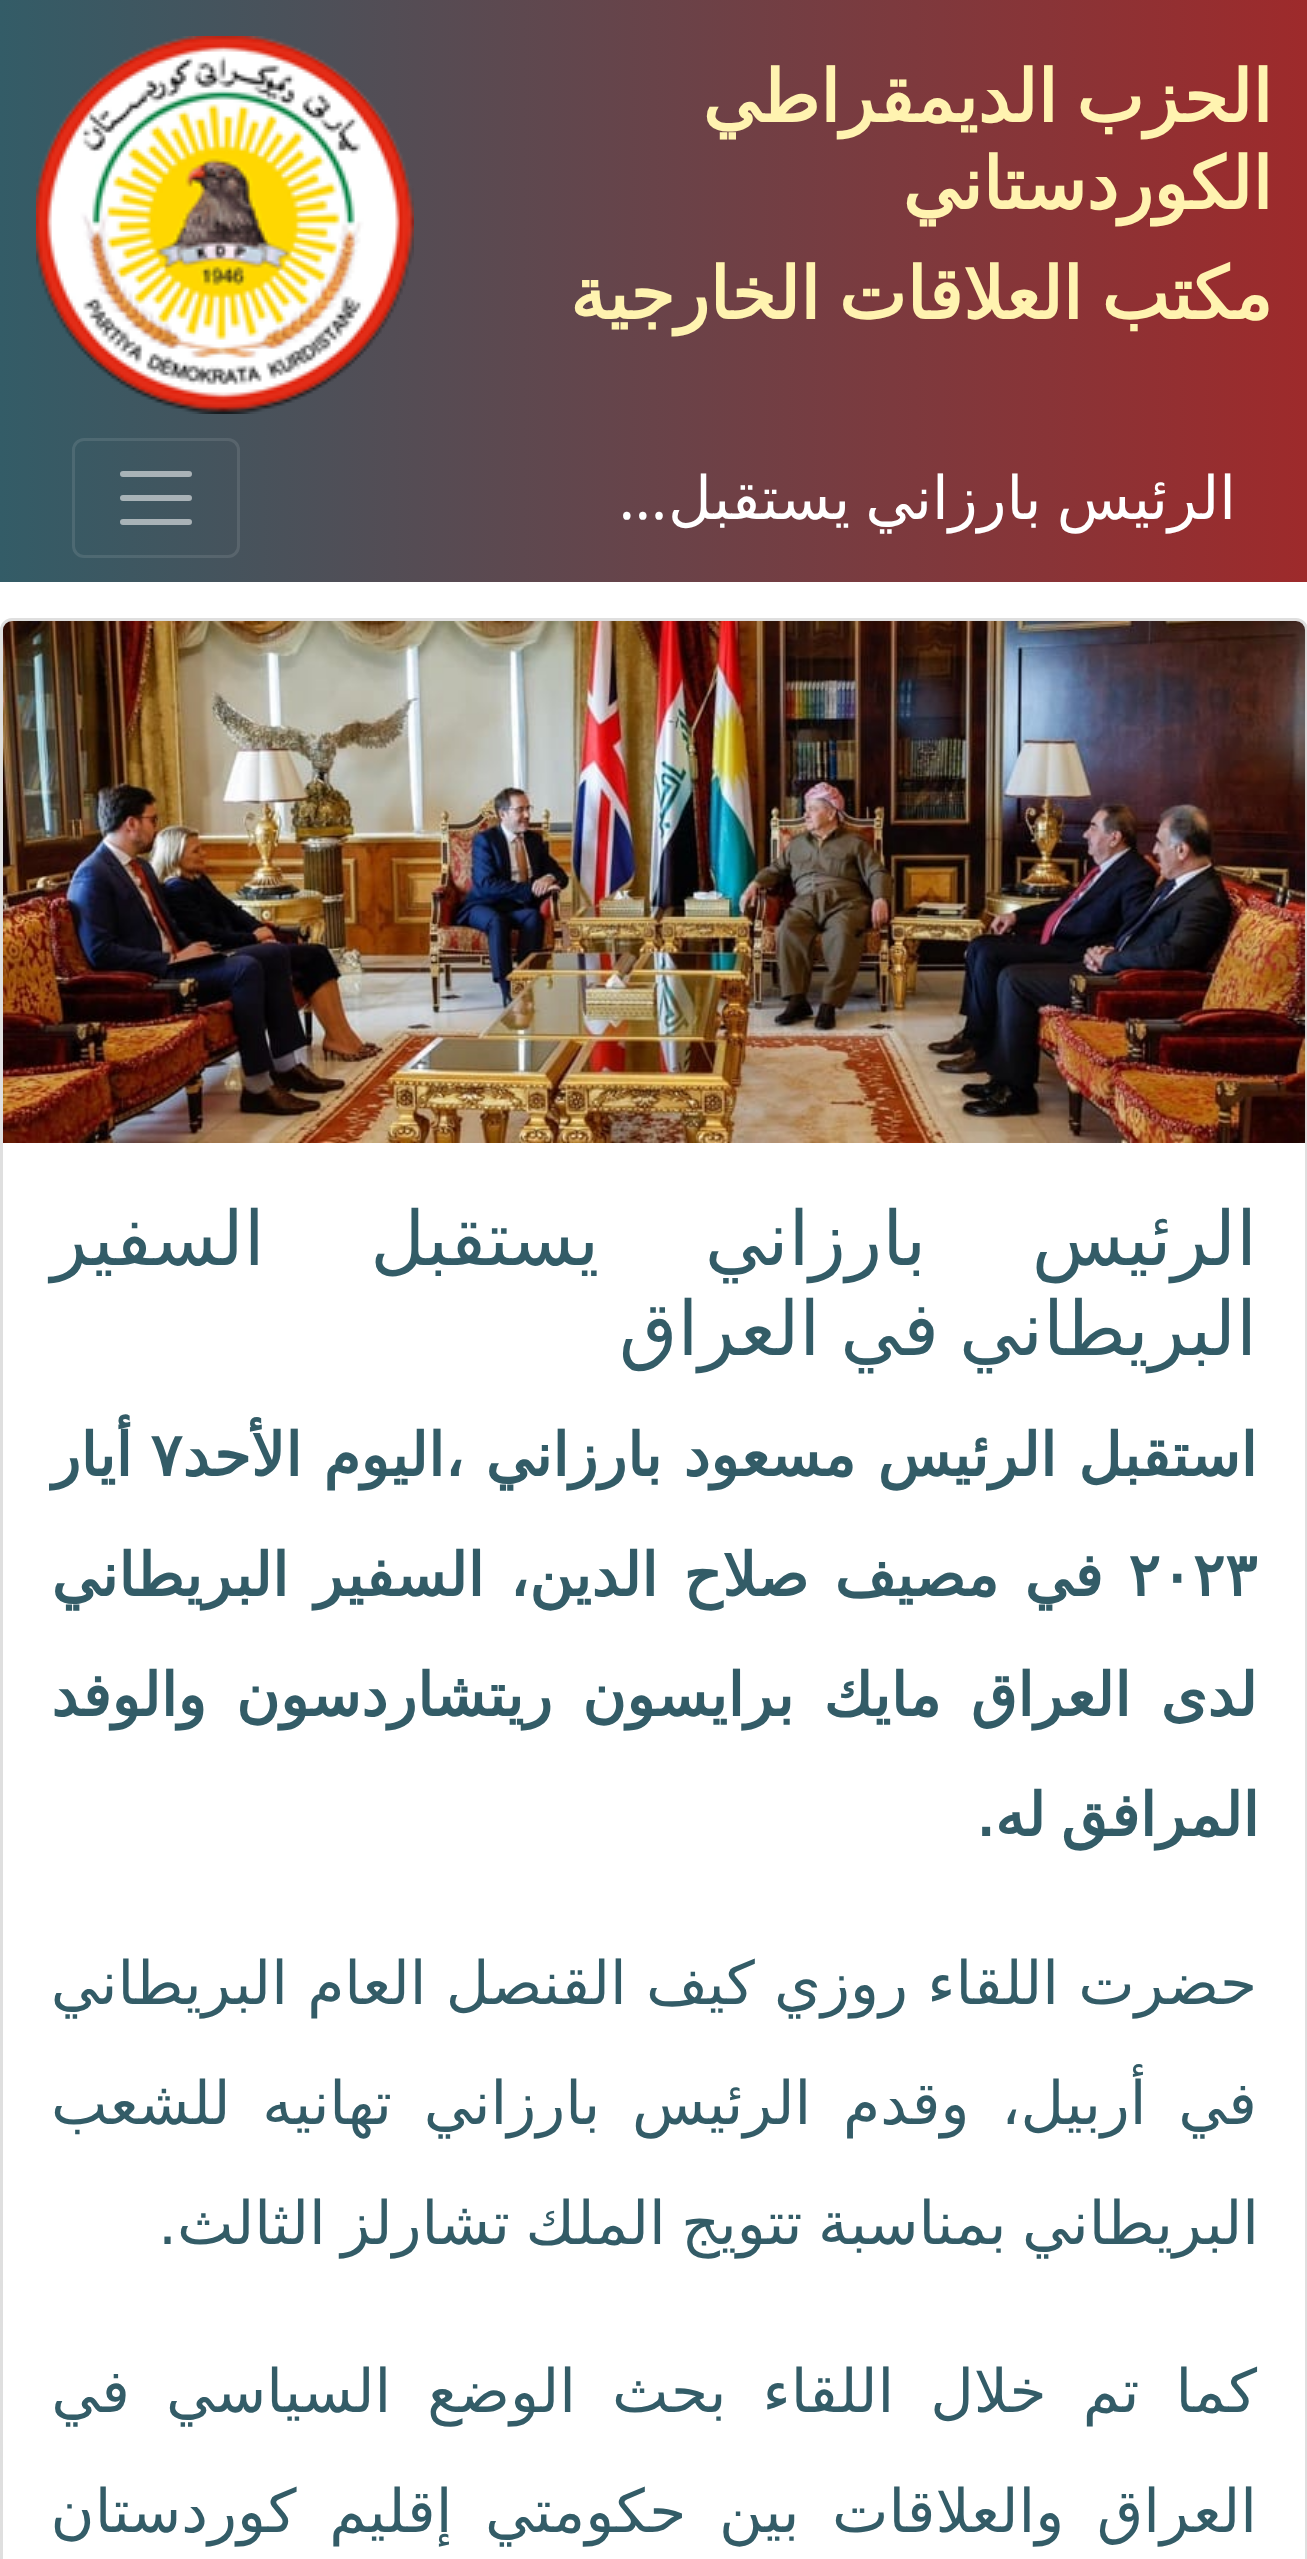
<!DOCTYPE html>
<meta charset="utf-8">
<style>body { margin: 0 } canvas { display: block }</style>
<canvas id="canvas" width="1307" height="2559"></canvas>
<script type="module">
  const canvas = document.getElementById("canvas");
  const g = canvas.getContext("2d");
  g.miterLimit = 4;
  g.fontKerning = "normal";
  function drawText(s, x, y, [font, color]) {
    g.font = font;
    g.fillStyle = color;
    g.fillText(s, x, y);
  }
  function fillBox(x, y, w, h, color) {
    g.fillStyle = color;
    g.fillRect(x, y, w, h);
  }
  async function drawPicture(src, x, y, w, h) {
    const img = new Image();
    img.src = src;
    await img.decode();
    g.drawImage(img, x, y, w, h);
  }
  let gradient;

  const s1 = ["bold 72px DejaVu Sans", "#FFF3B0"];
  const s2 = ["60px DejaVu Sans", "#FFFFFF"];
  const s3 = ["60px Noto Sans", "#FFFFFF"];
  const s4 = ["75.4px DejaVu Sans", "#335C67"];
  const s5 = ["bold 60px DejaVu Sans", "#335C67"];
  const s6 = ["60px DejaVu Sans", "#335C67"];

  fillBox(0, 0, 1307, 2559, "#FFFFFF");
  gradient = g.createLinearGradient(0, 207, 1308, 207);
  gradient.addColorStop(0, "#335C67");
  gradient.addColorStop(1, "#9E2A2B");
  g.fillStyle = gradient;
  g.fillRect(0, 0, 1307, 414);
  g.wordSpacing = "-4px";
  g.direction = "rtl";
  drawText("الحزب الدیمقراطي", 1272, 122, s1);
  g.wordSpacing = "0px";
  drawText("الکوردستاني", 1272, 209, s1);
  g.wordSpacing = "-4px";
  drawText("مکتب العلاقات الخارجية", 1272, 319, s1);
  await drawPicture("pic1.png", 36, 36, 378, 378);
  gradient = g.createLinearGradient(0, 498, 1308, 498);
  gradient.addColorStop(0, "#335C67");
  gradient.addColorStop(1, "#9E2A2B");
  g.fillStyle = gradient;
  g.fillRect(0, 414, 1307, 168);
  drawText("الرئيس بارزاني يستقبل", 1236, 519, s2);
  g.wordSpacing = "0px";
  drawText("...", 667, 519, s3);
  g.beginPath();
  g.roundRect(73.5, 439.5, 165, 117, 10.5);
  g.strokeStyle = "rgba(255, 255, 255, 0.1)";
  g.lineWidth = 3;
  g.stroke();
  g.beginPath();
  g.moveTo(123, 474);
  g.lineTo(189, 474);
  g.moveTo(123, 498);
  g.lineTo(189, 498);
  g.moveTo(123, 522);
  g.lineTo(189, 522);
  g.strokeStyle = "rgba(255, 255, 255, 0.55)";
  g.lineWidth = 6;
  g.lineCap = "round";
  g.stroke();
  g.beginPath();
  g.roundRect(1.5, 619.5, 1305, 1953, 10.5);
  g.strokeStyle = "#DFDFDF";
  g.lineWidth = 3;
  g.stroke();
  await drawPicture("pic2.png", 3, 621, 1302, 522);
  g.wordSpacing = "81.5px";
  drawText("الرئيس بارزاني يستقبل السفير", 1257, 1265, s4);
  g.wordSpacing = "-4px";
  drawText("البريطاني في العراق", 1257, 1355, s4);
  g.wordSpacing = "2.5px";
  drawText("استقبل الرئيس مسعود بارزاني ،اليوم الأحد", 1257, 1476, s5);
  g.wordSpacing = "0px";
  g.direction = "ltr";
  drawText("٧", 150, 1476, s5);
  g.direction = "rtl";
  drawText("أيار", 132, 1476, s5);
  g.direction = "ltr";
  drawText("٢٠٢٣", 1128, 1596, s5);
  g.wordSpacing = "6.5px";
  g.direction = "rtl";
  drawText("في مصيف صلاح الدين، السفير البريطاني", 1103, 1596, s5);
  g.wordSpacing = "10.5px";
  drawText("لدى العراق مايك برايسون ريتشاردسون والوفد", 1257, 1716, s5);
  g.wordSpacing = "-3.5px";
  drawText("المرافق له.", 1259, 1836, s5);
  g.wordSpacing = "0.25px";
  drawText("حضرت اللقاء روزي كيف القنصل العام البريطاني", 1257, 2004, s6);
  g.wordSpacing = "12.75px";
  drawText("في أربيل، وقدم الرئيس بارزاني تهانيه للشعب", 1257, 2124, s6);
  g.wordSpacing = "-3.5px";
  drawText("البريطاني بمناسبة تتويج الملك تشارلز الثالث.", 1259, 2244, s6);
  g.wordSpacing = "17px";
  drawText("كما تم خلال اللقاء بحث الوضع السياسي في", 1257, 2412, s6);
  g.wordSpacing = "13.5px";
  drawText("العراق والعلاقات بين حكومتي إقليم كوردستان", 1257, 2532, s6);
</script>
